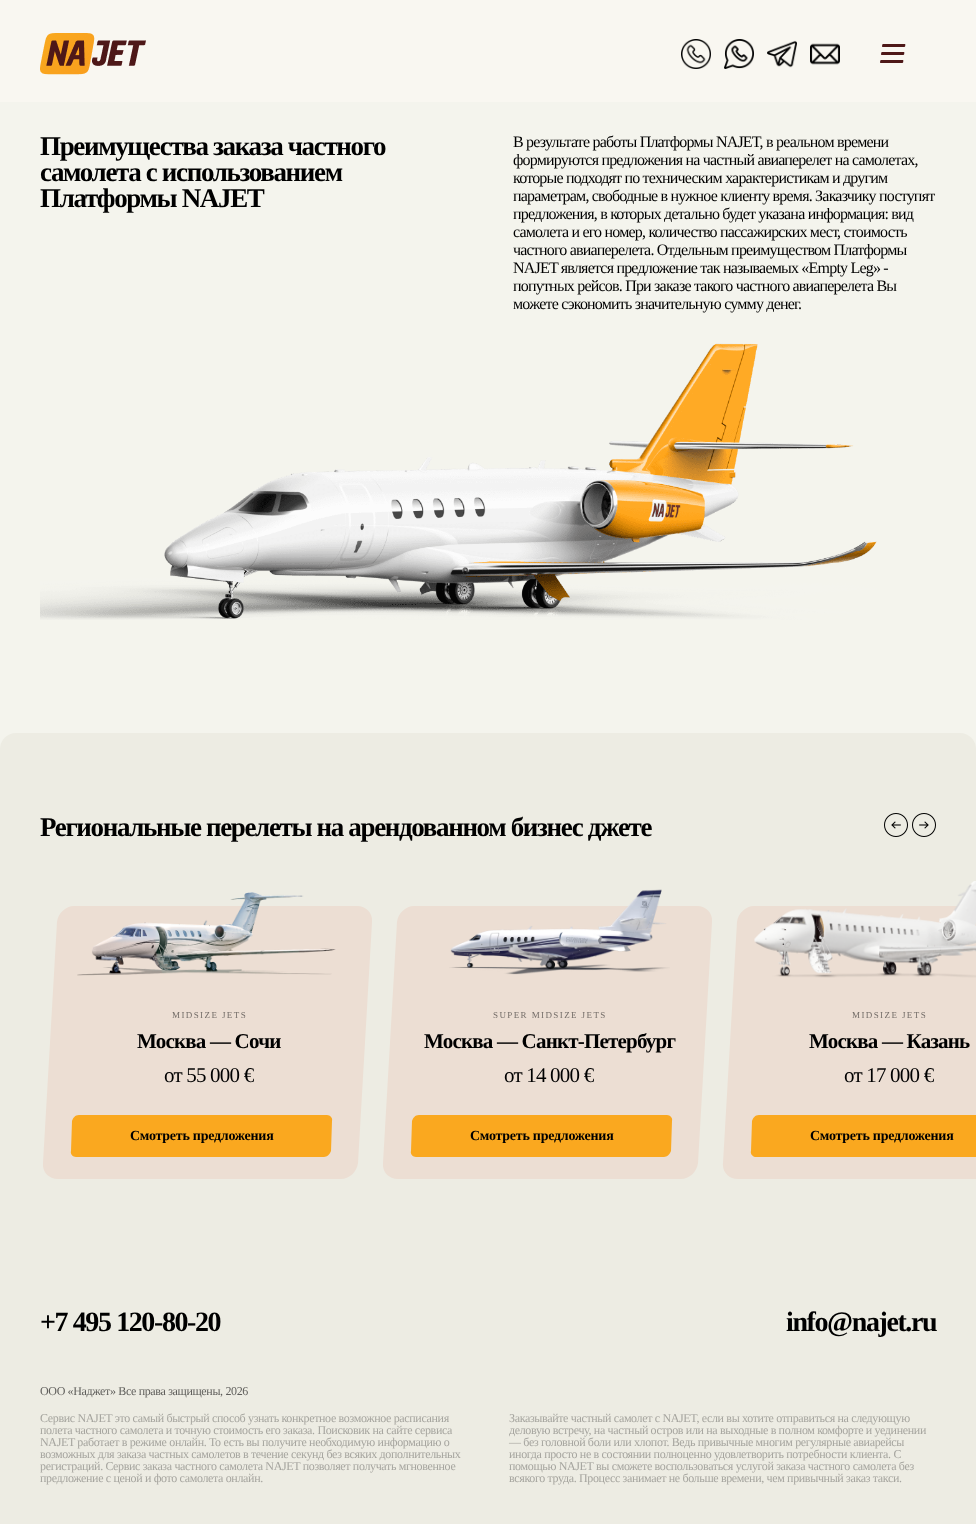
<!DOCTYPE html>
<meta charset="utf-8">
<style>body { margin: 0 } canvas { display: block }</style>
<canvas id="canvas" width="976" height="1524"></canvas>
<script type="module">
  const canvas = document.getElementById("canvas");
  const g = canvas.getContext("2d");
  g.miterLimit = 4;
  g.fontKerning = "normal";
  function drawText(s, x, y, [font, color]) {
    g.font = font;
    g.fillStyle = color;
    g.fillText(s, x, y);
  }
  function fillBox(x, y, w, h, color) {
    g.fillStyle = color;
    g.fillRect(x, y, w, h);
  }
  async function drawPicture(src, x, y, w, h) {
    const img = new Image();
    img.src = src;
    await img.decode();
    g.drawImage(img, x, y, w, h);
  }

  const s1 = ["bold 27px Liberation Serif", "#000000"];
  const s2 = ["16px Liberation Serif", "#000000"];
  const s3 = ["9px Liberation Serif", "#766F6A"];
  const s4 = ["bold 21px Liberation Serif", "#000000"];
  const s5 = ["21px Liberation Serif", "#000000"];
  const s6 = ["bold 14px Liberation Serif", "#000000"];
  const s7 = ["bold 28px Liberation Serif", "#000000"];
  const s8 = ["12px Liberation Serif", "#5F5E5B"];
  const s9 = ["12px Liberation Serif", "#A6A59F"];

  fillBox(0, 0, 976, 1524, "#EDECE3");
  fillBox(0, 0, 976, 102, "#F9F7F1");
  await drawPicture("pic1.png", 40, 33, 106, 42);
  await drawPicture("pic2.png", 681, 39, 30, 30);
  await drawPicture("pic3.png", 724, 39, 30, 30);
  await drawPicture("pic4.png", 767, 40, 30, 28);
  await drawPicture("pic5.png", 810, 43, 30, 22);
  await drawPicture("pic6.png", 880, 44, 26, 19);
  fillBox(0, 102, 976, 647, "#F4F4ED");
  g.letterSpacing = "-1.35px";
  drawText("Преимущества заказа частного", 40, 155, s1);
  drawText("самолета с использованием", 40, 181, s1);
  drawText("Платформы NAJET", 40, 207, s1);
  g.letterSpacing = "-0.8px";
  drawText("В результате работы Платформы NAJET, в реальном времени", 513, 147, s2);
  drawText("формируются предложения на частный авиаперелет на самолетах,", 513, 165, s2);
  drawText("которые подходят по техническим характеристикам и другим", 513, 183, s2);
  drawText("параметрам, свободные в нужное клиенту время. Заказчику поступят", 513, 201, s2);
  drawText("предложения, в которых детально будет указана информация: вид", 513, 219, s2);
  drawText("самолета и его номер, количество пассажирских мест, cтоимость", 513, 237, s2);
  drawText("частного авиаперелета. Отдельным преимуществом Платформы", 513, 255, s2);
  drawText("NAJET является предложение так называемых «Empty Leg» -", 513, 273, s2);
  drawText("попутных рейсов. При заказе такого частного авиаперелета Вы", 513, 291, s2);
  drawText("можете сэкономить значительную сумму денег.", 513, 309, s2);
  await drawPicture("pic7.png", 40, 343, 837, 277);
  g.fillStyle = "#EDECE3";
  g.beginPath();
  g.roundRect(0, 733, 976, 546, [16, 16, 0, 0]);
  g.fill();
  g.letterSpacing = "-1.35px";
  drawText("Региональные перелеты на арендованном бизнес джете", 40, 836, s1);
  await drawPicture("pic8.png", 884, 813, 24, 24);
  await drawPicture("pic9.png", 912, 813, 24, 24);
  g.fillStyle = "#ECDED3";
  g.beginPath();
  g.moveTo(74, 906);
  g.lineTo(357, 906);
  g.bezierCurveTo(366, 906, 373, 913, 372, 922);
  g.lineTo(358, 1163);
  g.bezierCurveTo(357, 1172, 349, 1179, 341, 1179);
  g.lineTo(58, 1179);
  g.bezierCurveTo(49, 1179, 42, 1172, 43, 1163);
  g.lineTo(57, 922);
  g.bezierCurveTo(58, 913, 66, 906, 74, 906);
  g.closePath();
  g.fill();
  await drawPicture("pic10.png", 77, 892, 259, 84);
  g.letterSpacing = "1.4px";
  drawText("MIDSIZE JETS", 172, 1018, s3);
  g.letterSpacing = "-0.8px";
  drawText("Москва — Сочи", 137, 1048, s4);
  drawText("от 55 000 €", 164, 1082, s5);
  g.fillStyle = "#FAA81F";
  g.beginPath();
  g.moveTo(79, 1115);
  g.lineTo(327, 1115);
  g.bezierCurveTo(330, 1115, 333, 1118, 332, 1121);
  g.lineTo(331, 1151);
  g.bezierCurveTo(330, 1154, 327, 1157, 324, 1157);
  g.lineTo(76, 1157);
  g.bezierCurveTo(73, 1157, 70, 1154, 71, 1151);
  g.lineTo(72, 1121);
  g.bezierCurveTo(73, 1118, 75, 1115, 79, 1115);
  g.closePath();
  g.fill();
  g.letterSpacing = "-0.25px";
  drawText("Смотреть предложения", 130, 1140, s6);
  g.fillStyle = "#ECDED3";
  g.beginPath();
  g.moveTo(414, 906);
  g.lineTo(697, 906);
  g.bezierCurveTo(706, 906, 713, 913, 712, 922);
  g.lineTo(698, 1163);
  g.bezierCurveTo(697, 1172, 689, 1179, 681, 1179);
  g.lineTo(398, 1179);
  g.bezierCurveTo(389, 1179, 382, 1172, 383, 1163);
  g.lineTo(397, 922);
  g.bezierCurveTo(398, 913, 406, 906, 414, 906);
  g.closePath();
  g.fill();
  await drawPicture("pic11.png", 449, 889, 221, 86);
  g.letterSpacing = "1.4px";
  drawText("SUPER MIDSIZE JETS", 493, 1018, s3);
  g.letterSpacing = "-0.8px";
  drawText("Москва — Санкт-Петербург", 424, 1048, s4);
  drawText("от 14 000 €", 504, 1082, s5);
  g.fillStyle = "#FAA81F";
  g.beginPath();
  g.moveTo(419, 1115);
  g.lineTo(667, 1115);
  g.bezierCurveTo(670, 1115, 673, 1118, 672, 1121);
  g.lineTo(671, 1151);
  g.bezierCurveTo(670, 1154, 667, 1157, 664, 1157);
  g.lineTo(416, 1157);
  g.bezierCurveTo(413, 1157, 410, 1154, 411, 1151);
  g.lineTo(412, 1121);
  g.bezierCurveTo(413, 1118, 415, 1115, 419, 1115);
  g.closePath();
  g.fill();
  g.letterSpacing = "-0.25px";
  drawText("Смотреть предложения", 470, 1140, s6);
  g.fillStyle = "#ECDED3";
  g.beginPath();
  g.moveTo(754, 906);
  g.lineTo(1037, 906);
  g.bezierCurveTo(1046, 906, 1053, 913, 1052, 922);
  g.lineTo(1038, 1163);
  g.bezierCurveTo(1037, 1172, 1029, 1179, 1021, 1179);
  g.lineTo(738, 1179);
  g.bezierCurveTo(729, 1179, 722, 1172, 723, 1163);
  g.lineTo(737, 922);
  g.bezierCurveTo(738, 913, 746, 906, 754, 906);
  g.closePath();
  g.fill();
  await drawPicture("pic12.png", 754, 881, 222, 97);
  g.letterSpacing = "1.4px";
  drawText("MIDSIZE JETS", 852, 1018, s3);
  g.letterSpacing = "-0.8px";
  drawText("Москва — Казань", 809, 1048, s4);
  drawText("от 17 000 €", 844, 1082, s5);
  g.fillStyle = "#FAA81F";
  g.beginPath();
  g.moveTo(759, 1115);
  g.lineTo(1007, 1115);
  g.bezierCurveTo(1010, 1115, 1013, 1118, 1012, 1121);
  g.lineTo(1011, 1151);
  g.bezierCurveTo(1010, 1154, 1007, 1157, 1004, 1157);
  g.lineTo(756, 1157);
  g.bezierCurveTo(753, 1157, 750, 1154, 751, 1151);
  g.lineTo(752, 1121);
  g.bezierCurveTo(753, 1118, 755, 1115, 759, 1115);
  g.closePath();
  g.fill();
  g.letterSpacing = "-0.25px";
  drawText("Смотреть предложения", 810, 1140, s6);
  g.letterSpacing = "-1.4px";
  drawText("+7 495 120-80-20", 40, 1331, s7);
  drawText("info@najet.ru", 786, 1331, s7);
  g.letterSpacing = "-0.35px";
  drawText("ООО «Наджет» Все права защищены, 2026", 40, 1395, s8);
  drawText("Сервис NAJET это самый быстрый способ узнать конкретное возможное расписания", 40, 1422, s9);
  drawText("полета частного самолета и точную стоимость его заказа. Поисковик на сайте сервиса", 40, 1434, s9);
  drawText("NAJET работает в режиме онлайн. То есть вы получите необходимую информацию о", 40, 1446, s9);
  drawText("возможных для заказа частных самолетов в течение секунд без всяких дополнительных", 40, 1458, s9);
  drawText("регистраций. Cервис заказа частного самолета NAJET позволяет получать мгновенное", 40, 1470, s9);
  drawText("предложение с ценой и фото самолета онлайн.", 40, 1482, s9);
  drawText("Заказывайте частный самолет с NAJET, если вы хотите отправиться на следующую", 509, 1422, s9);
  drawText("деловую встречу, на частный остров или на выходные в полном комфорте и уединении", 509, 1434, s9);
  drawText("— без головной боли или хлопот. Ведь привычные многим регулярные авиарейсы", 509, 1446, s9);
  drawText("иногда просто не в состоянии полноценно удовлетворить потребности клиента. С", 509, 1458, s9);
  drawText("помощью NAJET вы сможете воспользоваться услугой заказа частного самолета без", 509, 1470, s9);
  drawText("всякого труда. Процесс занимает не больше времени, чем привычный заказ такси.", 509, 1482, s9);
</script>
